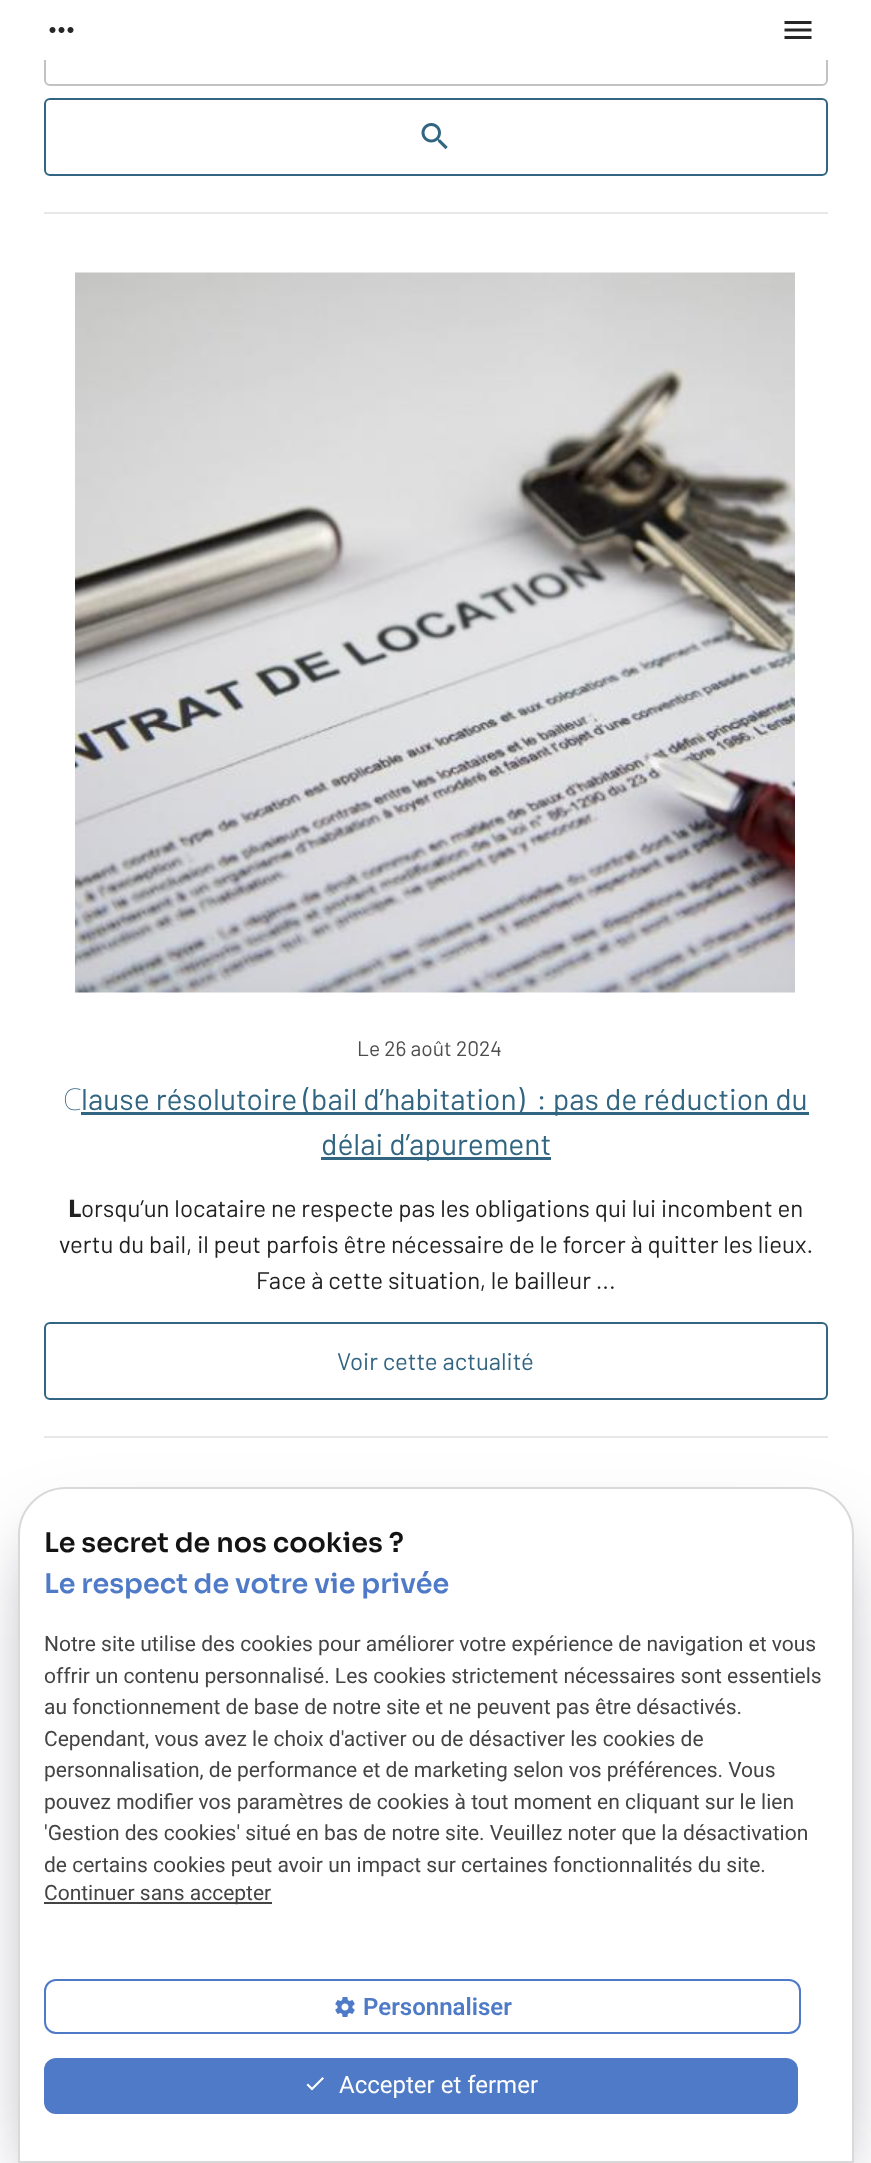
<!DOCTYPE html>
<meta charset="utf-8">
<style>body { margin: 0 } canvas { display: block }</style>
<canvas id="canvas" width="871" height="2163"></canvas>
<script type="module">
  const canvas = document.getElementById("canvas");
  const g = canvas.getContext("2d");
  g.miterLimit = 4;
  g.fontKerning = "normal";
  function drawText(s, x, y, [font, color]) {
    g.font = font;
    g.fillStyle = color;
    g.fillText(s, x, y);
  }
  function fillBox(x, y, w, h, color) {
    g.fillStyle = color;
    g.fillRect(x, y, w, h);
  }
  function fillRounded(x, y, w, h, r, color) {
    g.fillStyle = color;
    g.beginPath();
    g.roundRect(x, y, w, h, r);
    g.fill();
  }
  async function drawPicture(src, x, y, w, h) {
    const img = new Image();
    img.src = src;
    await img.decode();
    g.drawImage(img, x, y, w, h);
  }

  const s1 = ["21px Barlow", "#4D4D4D"];
  const s2 = ["100 30px Noto Sans", "#316581"];
  const s3 = ["30px Barlow", "#316581"];
  const s4 = ["800 24px Noto Sans", "#212121"];
  const s5 = ["24px Barlow", "#212121"];
  const s6 = ["24px Barlow", "#316581"];
  const s7 = ["600 27px Sora", "#141414"];
  const s8 = ["600 27px Sora", "#4E7AC7"];
  const s9 = ["21px Roboto", "#444444"];
  const s10 = ["600 24px Roboto", "#4E7AC7"];
  const s11 = ["24px Roboto", "#FFFFFF"];

  fillBox(0, 0, 871, 2163, "#FFFFFF");
  g.beginPath();
  g.roundRect(45, 15, 782, 70, 5);
  g.strokeStyle = "#C2C2C2";
  g.lineWidth = 2;
  g.stroke();
  fillBox(44, 14, 784, 46, "#FFFFFF");
  await drawPicture("pic1.png", 49, 27, 25, 6);
  await drawPicture("pic2.png", 784, 21, 28, 18);
  fillBox(44, 212, 784, 2, "#E7E7E7");
  g.beginPath();
  g.roundRect(45, 99, 782, 76, 5);
  g.strokeStyle = "#316581";
  g.stroke();
  await drawPicture("pic3.png", 421, 123, 27, 27);
  fillBox(44, 1436, 784, 2, "#E7E7E7");
  await drawPicture("pic4.png", 75, 272, 720, 721);
  drawText("Le 26 août 2024", 357, 1056, s1);
  drawText("C", 63, 1110, s2);
  fillBox(81, 1112, 728, 3, "#316581");
  drawText("lause résolutoire (bail d’habitation)  : pas de réduction du", 81, 1110, s3);
  fillBox(321, 1157, 230, 3, "#316581");
  drawText("délai d’apurement", 321, 1155, s3);
  drawText("L", 68, 1217, s4);
  drawText("orsqu’un locataire ne respecte pas les obligations qui lui incombent en", 81, 1217, s5);
  drawText("vertu du bail, il peut parfois être nécessaire de le forcer à quitter les lieux.", 59, 1253, s5);
  drawText("Face à cette situation, le bailleur ...", 256, 1289, s5);
  g.beginPath();
  g.roundRect(45, 1323, 782, 76, 5);
  g.stroke();
  drawText("Voir cette actualité", 337, 1370, s6);
  g.fillStyle = "rgba(0, 0, 0, 0.3)";
  g.filter = "blur(27px)";
  g.beginPath();
  g.roundRect(45, 1541, 782, 622, 21);
  g.fill();
  g.filter = "none";
  g.fillStyle = "rgba(50, 50, 93, 0.25)";
  g.filter = "blur(45px)";
  g.beginPath();
  g.roundRect(36, 1550, 800, 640, 30);
  g.fill();
  g.filter = "none";
  g.fillStyle = "#FFFFFF";
  g.beginPath();
  g.roundRect(19, 1488, 834, 674, [47, 47, 0, 0]);
  g.fill();
  g.strokeStyle = "#D9D9D9";
  g.stroke();
  drawText("Le secret de nos cookies ?", 44, 1552, s7);
  drawText("Le respect de votre vie privée", 44, 1593, s8);
  drawText("Notre site utilise des cookies pour améliorer votre expérience de navigation et vous", 44, 1651, s9);
  drawText("offrir un contenu personnalisé. Les cookies strictement nécessaires sont essentiels", 44, 1683, s9);
  drawText("au fonctionnement de base de notre site et ne peuvent pas être désactivés.", 44, 1714, s9);
  drawText("Cependant, vous avez le choix d'activer ou de désactiver les cookies de", 44, 1746, s9);
  drawText("personnalisation, de performance et de marketing selon vos préférences. Vous", 44, 1777, s9);
  drawText("pouvez modifier vos paramètres de cookies à tout moment en cliquant sur le lien", 44, 1809, s9);
  drawText("'Gestion des cookies' situé en bas de notre site. Veuillez noter que la désactivation", 44, 1840, s9);
  drawText("de certains cookies peut avoir un impact sur certaines fonctionnalités du site.", 44, 1872, s9);
  fillBox(44, 1902, 228, 2, "#444444");
  drawText("Continuer sans accepter", 44, 1900, s9);
  g.beginPath();
  g.roundRect(45, 1980, 755, 53, 11);
  g.strokeStyle = "#4E7AC7";
  g.stroke();
  await drawPicture("pic5.png", 335, 1997, 20, 20);
  drawText("Personnaliser", 363, 2015, s10);
  fillRounded(44, 2058, 754, 56, 12, "#4E7AC7");
  g.fillStyle = "#FFFFFF";
  g.beginPath();
  g.moveTo(312, 2087.5);
  g.lineTo(322.5, 2077);
  g.lineTo(324, 2078.5);
  g.lineTo(312, 2090.5);
  g.lineTo(306.5, 2085);
  g.lineTo(308, 2083.5);
  g.closePath();
  g.fill();
  drawText("Accepter et fermer", 339, 2093, s11);
</script>
